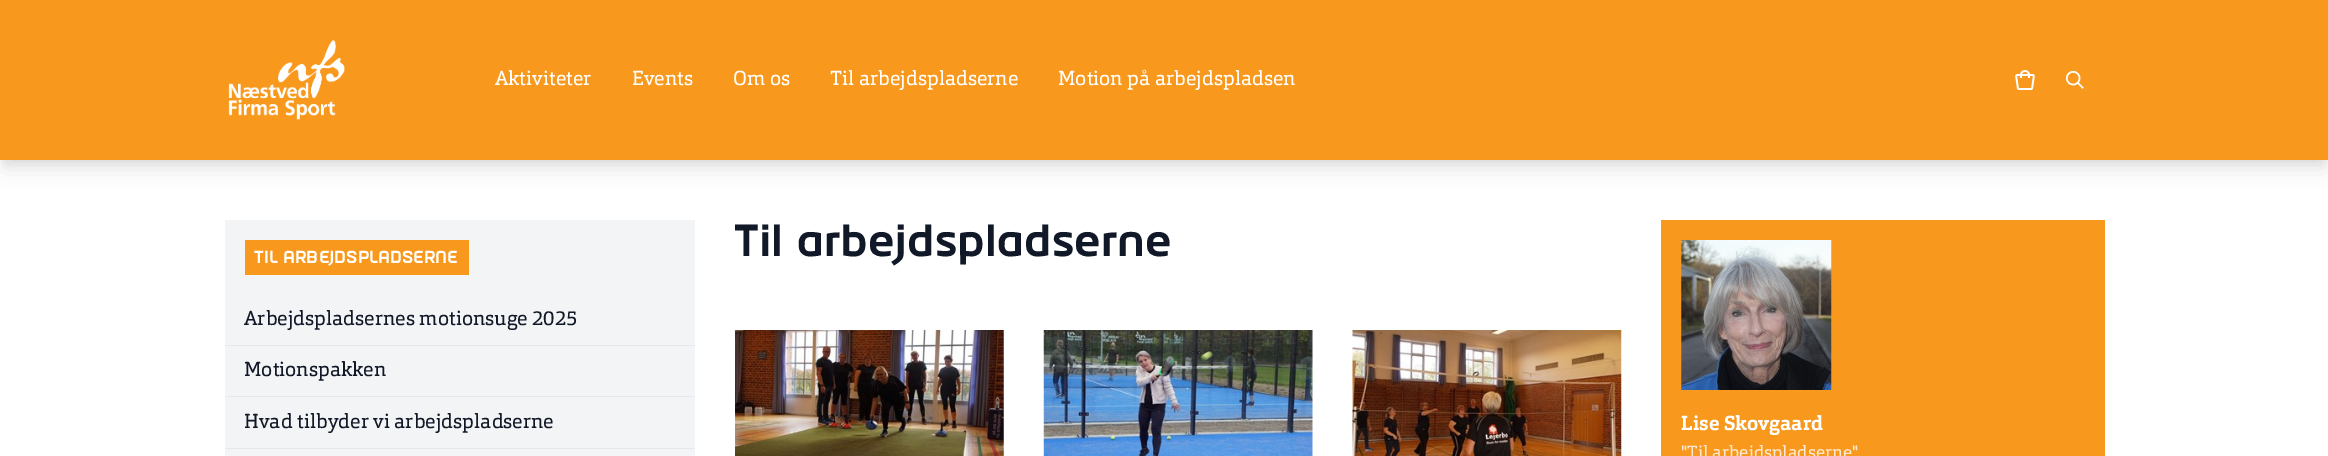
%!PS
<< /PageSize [2328 456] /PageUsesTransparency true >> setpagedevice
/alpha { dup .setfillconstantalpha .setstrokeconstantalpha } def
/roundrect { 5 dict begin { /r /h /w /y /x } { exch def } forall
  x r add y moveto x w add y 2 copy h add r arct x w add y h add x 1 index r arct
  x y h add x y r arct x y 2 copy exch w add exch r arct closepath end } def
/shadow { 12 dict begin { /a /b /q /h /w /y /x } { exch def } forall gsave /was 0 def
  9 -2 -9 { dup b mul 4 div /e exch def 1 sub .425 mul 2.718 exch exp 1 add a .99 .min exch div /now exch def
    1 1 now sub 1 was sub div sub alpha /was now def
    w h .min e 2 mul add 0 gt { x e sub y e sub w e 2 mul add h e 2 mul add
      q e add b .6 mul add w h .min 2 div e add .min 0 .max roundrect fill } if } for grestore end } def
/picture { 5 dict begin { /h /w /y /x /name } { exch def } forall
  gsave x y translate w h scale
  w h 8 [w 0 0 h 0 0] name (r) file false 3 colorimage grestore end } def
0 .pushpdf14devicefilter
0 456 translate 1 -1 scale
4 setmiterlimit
1 setgray
0 0 2328 456 rectfill
0 setgray
3 8 2323 155 0 4 0.05 shadow
4 16 2321 153 0 9.5 0.1 shadow
0.973 0.596 0.11 setrgbcolor
0 0 2328 160 rectfill
(img1.rgb) 228 40 117 80 picture
/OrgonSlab-Regular [20 0 0 -20 0 0] selectfont
1 setgray
495 85 moveto (Aktiviteter) show
632 85 moveto (Events) show
733 85 moveto (Om os) show
830 85 moveto (Til arbejdspladserne) show
1058 85 moveto (Motion på arbejdspladsen) show
(img2.rgb) 2015 70 20 20 picture
(img3.rgb) 2065 70 19 19 picture
0.953 0.957 0.965 setrgbcolor
225 220 470 236 rectfill
0.973 0.596 0.11 setrgbcolor
245 240 224 35 rectfill
/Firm-Bold [17.5 0 0 -17.5 0 0] selectfont
1 setgray
254 263 moveto (TIL ARBEJDSPLADSERNE) show
0.898 0.906 0.922 setrgbcolor
225 345 470 1 rectfill
/OrgonSlab-Regular [20 0 0 -20 0 0] selectfont
0.067 0.094 0.153 setrgbcolor
244 325 moveto (Arbejdspladsernes motionsuge 2025) show
0.898 0.906 0.922 setrgbcolor
225 396 470 1 rectfill
0.067 0.094 0.153 setrgbcolor
244 376 moveto (Motionspakken) show
0.898 0.906 0.922 setrgbcolor
225 448 470 1 rectfill
0.067 0.094 0.153 setrgbcolor
244 428 moveto (Hvad tilbyder vi arbejdspladserne) show
/Firm-Bold [45 0 0 -45 0 0] selectfont
734 256 moveto (Til arbejdspladserne) show
(img4.rgb) 735 330 269 126 picture
(img5.rgb) 1043 330 270 126 picture
(img6.rgb) 1352 330 270 126 picture
0.973 0.596 0.11 setrgbcolor
1661 220 444 236 rectfill
(img7.rgb) 1681 240 151 150 picture
/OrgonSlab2-Regular [20 0 0 -20 0 0] selectfont
1 setgray
1681 430 moveto (Lise Skovgaard) show
/OrgonSlab-Regular [17.5 0 0 -17.5 0 0] selectfont
0.996 0.918 0.824 setrgbcolor
1681 458 moveto ("Til arbejdspladserne") show
.poppdf14devicefilter showpage
